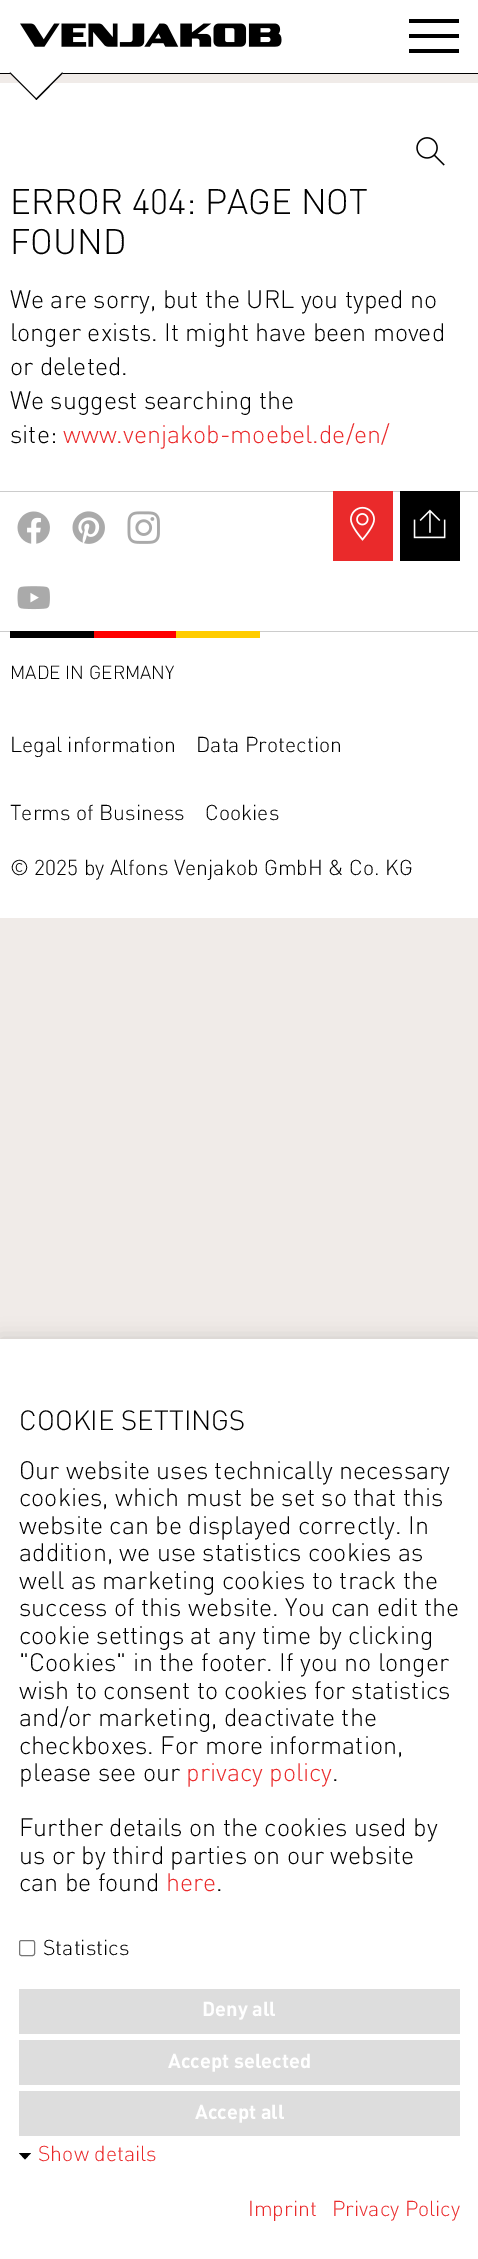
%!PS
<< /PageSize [478 2259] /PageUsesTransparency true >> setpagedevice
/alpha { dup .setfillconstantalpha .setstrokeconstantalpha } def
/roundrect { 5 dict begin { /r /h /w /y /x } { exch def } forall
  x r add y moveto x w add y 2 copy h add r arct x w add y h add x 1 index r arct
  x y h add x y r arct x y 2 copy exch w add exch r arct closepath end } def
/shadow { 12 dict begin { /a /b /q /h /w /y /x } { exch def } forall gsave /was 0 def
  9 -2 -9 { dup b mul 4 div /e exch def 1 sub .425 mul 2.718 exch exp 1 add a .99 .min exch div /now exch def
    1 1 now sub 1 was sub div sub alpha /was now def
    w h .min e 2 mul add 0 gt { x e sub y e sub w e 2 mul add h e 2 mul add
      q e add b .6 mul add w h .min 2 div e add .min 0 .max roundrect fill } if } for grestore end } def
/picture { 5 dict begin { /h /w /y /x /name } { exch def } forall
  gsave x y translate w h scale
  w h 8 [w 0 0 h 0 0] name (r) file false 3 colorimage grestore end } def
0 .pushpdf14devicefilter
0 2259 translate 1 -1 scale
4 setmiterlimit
0.941 0.922 0.91 setrgbcolor
0 0 478 2259 rectfill
1 setgray
0 0 478 73 rectfill
(img1.rgb) 20 23 262 24 picture
0 setgray
409 34 50 4 rectfill
409 19 50 4 rectfill
409 49 50 4 rectfill
0 73 478 1 rectfill
1 setgray
0 83 478 835 rectfill
gsave
0 73 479 27 rectclip
newpath 36 47 moveto 63 73 lineto 36 100 lineto 10 73 lineto closepath fill
grestore
0 setgray
newpath 62 72.5 moveto 63 73 lineto 36.5 100 lineto 35.5 99 lineto closepath fill
newpath 10.5 72.5 moveto 37 99 lineto 36.5 100 lineto 9.5 73 lineto closepath fill
(img2.rgb) 416 137 29 29 picture
/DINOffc-Light [35 0 0 -35 0 0] selectfont
10 214 moveto (ERROR 404: PAGE NOT) show
10 254 moveto (FOUND) show
/DINOffc-Light [25 0 0 -25 0 0] selectfont
10 308 moveto (We are sorry, but the URL you typed no) show
10 341 moveto (longer exists. It might have been moved) show
10 375 moveto (or deleted.) show
10 409 moveto (We suggest searching the) show
10 443 moveto (site:) show
0.918 0.165 0.169 setrgbcolor
63 443 moveto (www.venjakob-moebel.de/en/) show
0.8 setgray
0 491 478 1 rectfill
(img3.rgb) 17 511 33 33 picture
(img4.rgb) 72 511 33 33 picture
(img5.rgb) 127 511 33 33 picture
(img6.rgb) 17 586 33 24 picture
0.918 0.165 0.169 setrgbcolor
333 491 60 70 rectfill
(img7.rgb) 350 506 25 35 picture
0 setgray
400 491 60 70 rectfill
(img8.rgb) 413 509 33 30 picture
0.8 setgray
0 631 478 1 rectfill
0 setgray
10 631 84 7 rectfill
1 0 0 setrgbcolor
94 631 82 7 rectfill
1 0.8 0 setrgbcolor
176 631 84 7 rectfill
/DINOffc-Light [18.75 0 0 -18.75 0 0] selectfont
0 setgray
10 679 moveto (MADE IN GERMANY) show
/DINOffc-Light [21.25 0 0 -21.25 0 0] selectfont
10 752 moveto (Legal information) show
196 752 moveto (Data Protection) show
10 820 moveto (Terms of Business) show
205 820 moveto (Cookies) show
10 875 moveto (© 2025 by Alfons Venjakob GmbH & Co. KG) show
0 1339 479 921 0 10 0.15 shadow
1 setgray
0 1339 478 920 rectfill
/DINOffc-Light [27.5 0 0 -27.5 0 0] selectfont
0 setgray
19 1430 moveto (COOKIE SETTINGS) show
/DINOffc-Light [25 0 0 -25 0 0] selectfont
19 1479 moveto (Our website uses technically necessary) show
19 1506 moveto (cookies, which must be set so that this) show
19 1534 moveto (website can be displayed correctly. In) show
19 1561 moveto (addition, we use statistics cookies as) show
19 1589 moveto (well as marketing cookies to track the) show
19 1616 moveto (success of this website. You can edit the) show
19 1644 moveto (cookie settings at any time by clicking) show
19 1671 moveto ("Cookies" in the footer. If you no longer) show
19 1699 moveto (wish to consent to cookies for statistics) show
19 1726 moveto (and/or marketing, deactivate the) show
19 1754 moveto (checkboxes. For more information,) show
19 1781 moveto (please see our) show
0.918 0.165 0.169 setrgbcolor
186 1781 moveto (privacy policy) show
0 setgray
332 1781 moveto (.) show
19 1836 moveto (Further details on the cookies used by) show
19 1864 moveto (us or by third parties on our website) show
19 1891 moveto (can be found) show
0.918 0.165 0.169 setrgbcolor
166 1891 moveto (here) show
0 setgray
216 1891 moveto (.) show
0.463 setgray
19.5 1940.5 15 15 2 roundrect stroke
/DINOffc-Light [21.25 0 0 -21.25 0 0] selectfont
0 setgray
43 1955 moveto (Statistics) show
0.867 setgray
19 1989 441 45 rectfill
/DINOffc-Bold [20 0 0 -20 0 0] selectfont
1 setgray
202 2016 moveto (Deny all) show
0.867 setgray
19 2040 441 45 rectfill
1 setgray
168 2068 moveto (Accept selected) show
0.867 setgray
19 2091 441 45 rectfill
1 setgray
195 2119 moveto (Accept all) show
0 setgray
newpath 19 2153 moveto 31 2153 lineto 25 2159.5 lineto closepath fill
/DINOffc-Light [21.25 0 0 -21.25 0 0] selectfont
0.918 0.165 0.169 setrgbcolor
38 2161 moveto (Show details) show
248 2216 moveto (Imprint) show
332 2216 moveto (Privacy Policy) show
.poppdf14devicefilter showpage
